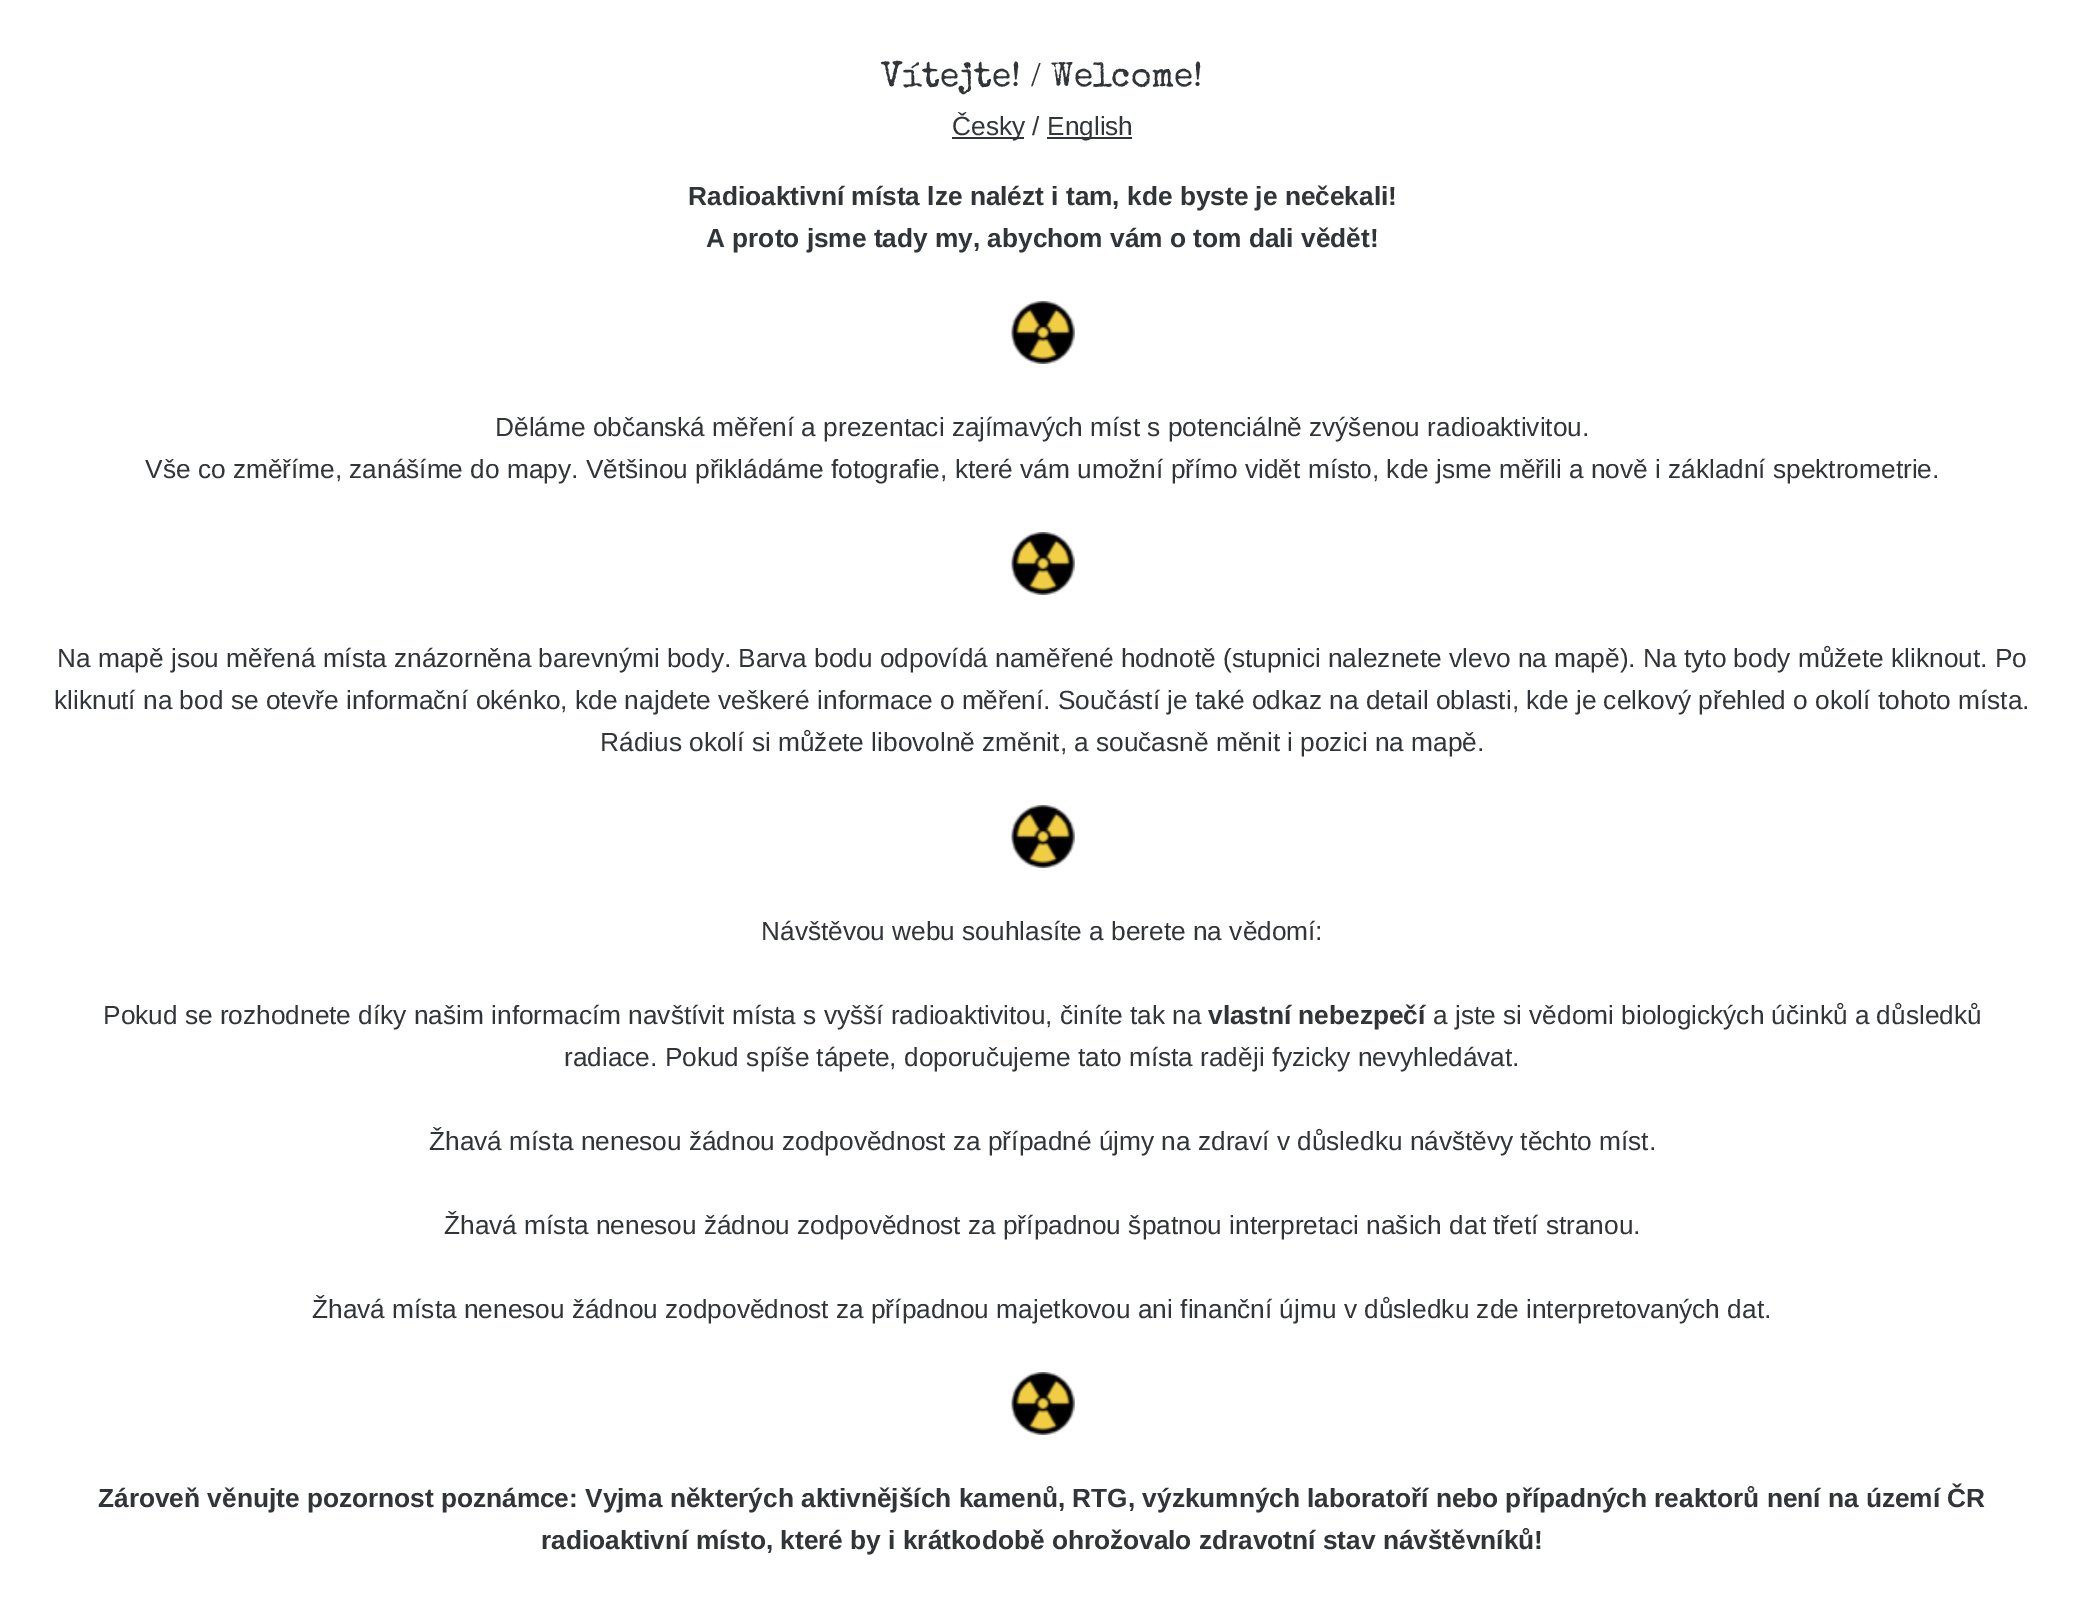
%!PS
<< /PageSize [2083 1624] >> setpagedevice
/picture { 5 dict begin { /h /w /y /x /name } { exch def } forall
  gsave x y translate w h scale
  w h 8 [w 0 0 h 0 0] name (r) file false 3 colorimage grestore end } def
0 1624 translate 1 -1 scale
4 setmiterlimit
1 setgray
0 0 2083 1624 rectfill
/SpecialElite-Regular [35 0 0 -35 0 0] selectfont
0.192 0.204 0.22 setrgbcolor
881 86 moveto (Vítejte!) show
/LiberationSerif-Regular [35 0 0 -35 0 0] selectfont
1031 86 moveto (/) show
/SpecialElite-Regular [35 0 0 -35 0 0] selectfont
1051 86 moveto (Welcome!) show
952 137 72 2 rectfill
/LiberationSans-Regular [26.25 0 0 -26.25 0 0] selectfont
952 135 moveto (Česky /) show
1047 137 85 2 rectfill
1047 135 moveto (English) show
/LiberationSans-Bold [26.25 0 0 -26.25 0 0] selectfont
688 205 moveto (Radioaktivní místa lze nalézt i tam, kde byste je nečekali!) show
706 247 moveto (A proto jsme tady my, abychom vám o tom dali vědět!) show
(img1.rgb) 1010 301 65 63 picture
/LiberationSans-Regular [26.25 0 0 -26.25 0 0] selectfont
495 436 moveto (Děláme občanská měření a prezentaci zajímavých míst s potenciálně zvýšenou radioaktivitou.) show
145 478 moveto (Vše co změříme, zanášíme do mapy. Většinou přikládáme fotografie, které vám umožní přímo vidět místo, kde jsme měřili a nově i základní spektrometrie.) show
(img1.rgb) 1010 532 65 63 picture
57 667 moveto (Na mapě jsou měřená místa znázorněna barevnými body. Barva bodu odpovídá naměřené hodnotě \(stupnici naleznete vlevo na mapě\). Na tyto body můžete kliknout. Po) show
54 709 moveto (kliknutí na bod se otevře informační okénko, kde najdete veškeré informace o měření. Součástí je také odkaz na detail oblasti, kde je celkový přehled o okolí tohoto místa.) show
600 751 moveto (Rádius okolí si můžete libovolně změnit, a současně měnit i pozici na mapě.) show
(img1.rgb) 1010 805 65 63 picture
761 940 moveto (Návštěvou webu souhlasíte a berete na vědomí:) show
103 1024 moveto (Pokud se rozhodnete díky našim informacím navštívit místa s vyšší radioaktivitou, činíte tak na) show
/LiberationSans-Bold [26.25 0 0 -26.25 0 0] selectfont
1208 1024 moveto (vlastní nebezpečí) show
/LiberationSans-Regular [26.25 0 0 -26.25 0 0] selectfont
1433 1024 moveto (a jste si vědomi biologických účinků a důsledků) show
564 1066 moveto (radiace. Pokud spíše tápete, doporučujeme tato místa raději fyzicky nevyhledávat.) show
429 1150 moveto (Žhavá místa nenesou žádnou zodpovědnost za případné újmy na zdraví v důsledku návštěvy těchto míst.) show
444 1234 moveto (Žhavá místa nenesou žádnou zodpovědnost za případnou špatnou interpretaci našich dat třetí stranou.) show
312 1318 moveto (Žhavá místa nenesou žádnou zodpovědnost za případnou majetkovou ani finanční újmu v důsledku zde interpretovaných dat.) show
(img1.rgb) 1010 1372 65 63 picture
/LiberationSans-Bold [26.25 0 0 -26.25 0 0] selectfont
98 1507 moveto (Zároveň věnujte pozornost poznámce: Vyjma některých aktivnějších kamenů, RTG, výzkumných laboratoří nebo případných reaktorů není na území ČR) show
541 1549 moveto (radioaktivní místo, které by i krátkodobě ohrožovalo zdravotní stav návštěvníků!) show
showpage
